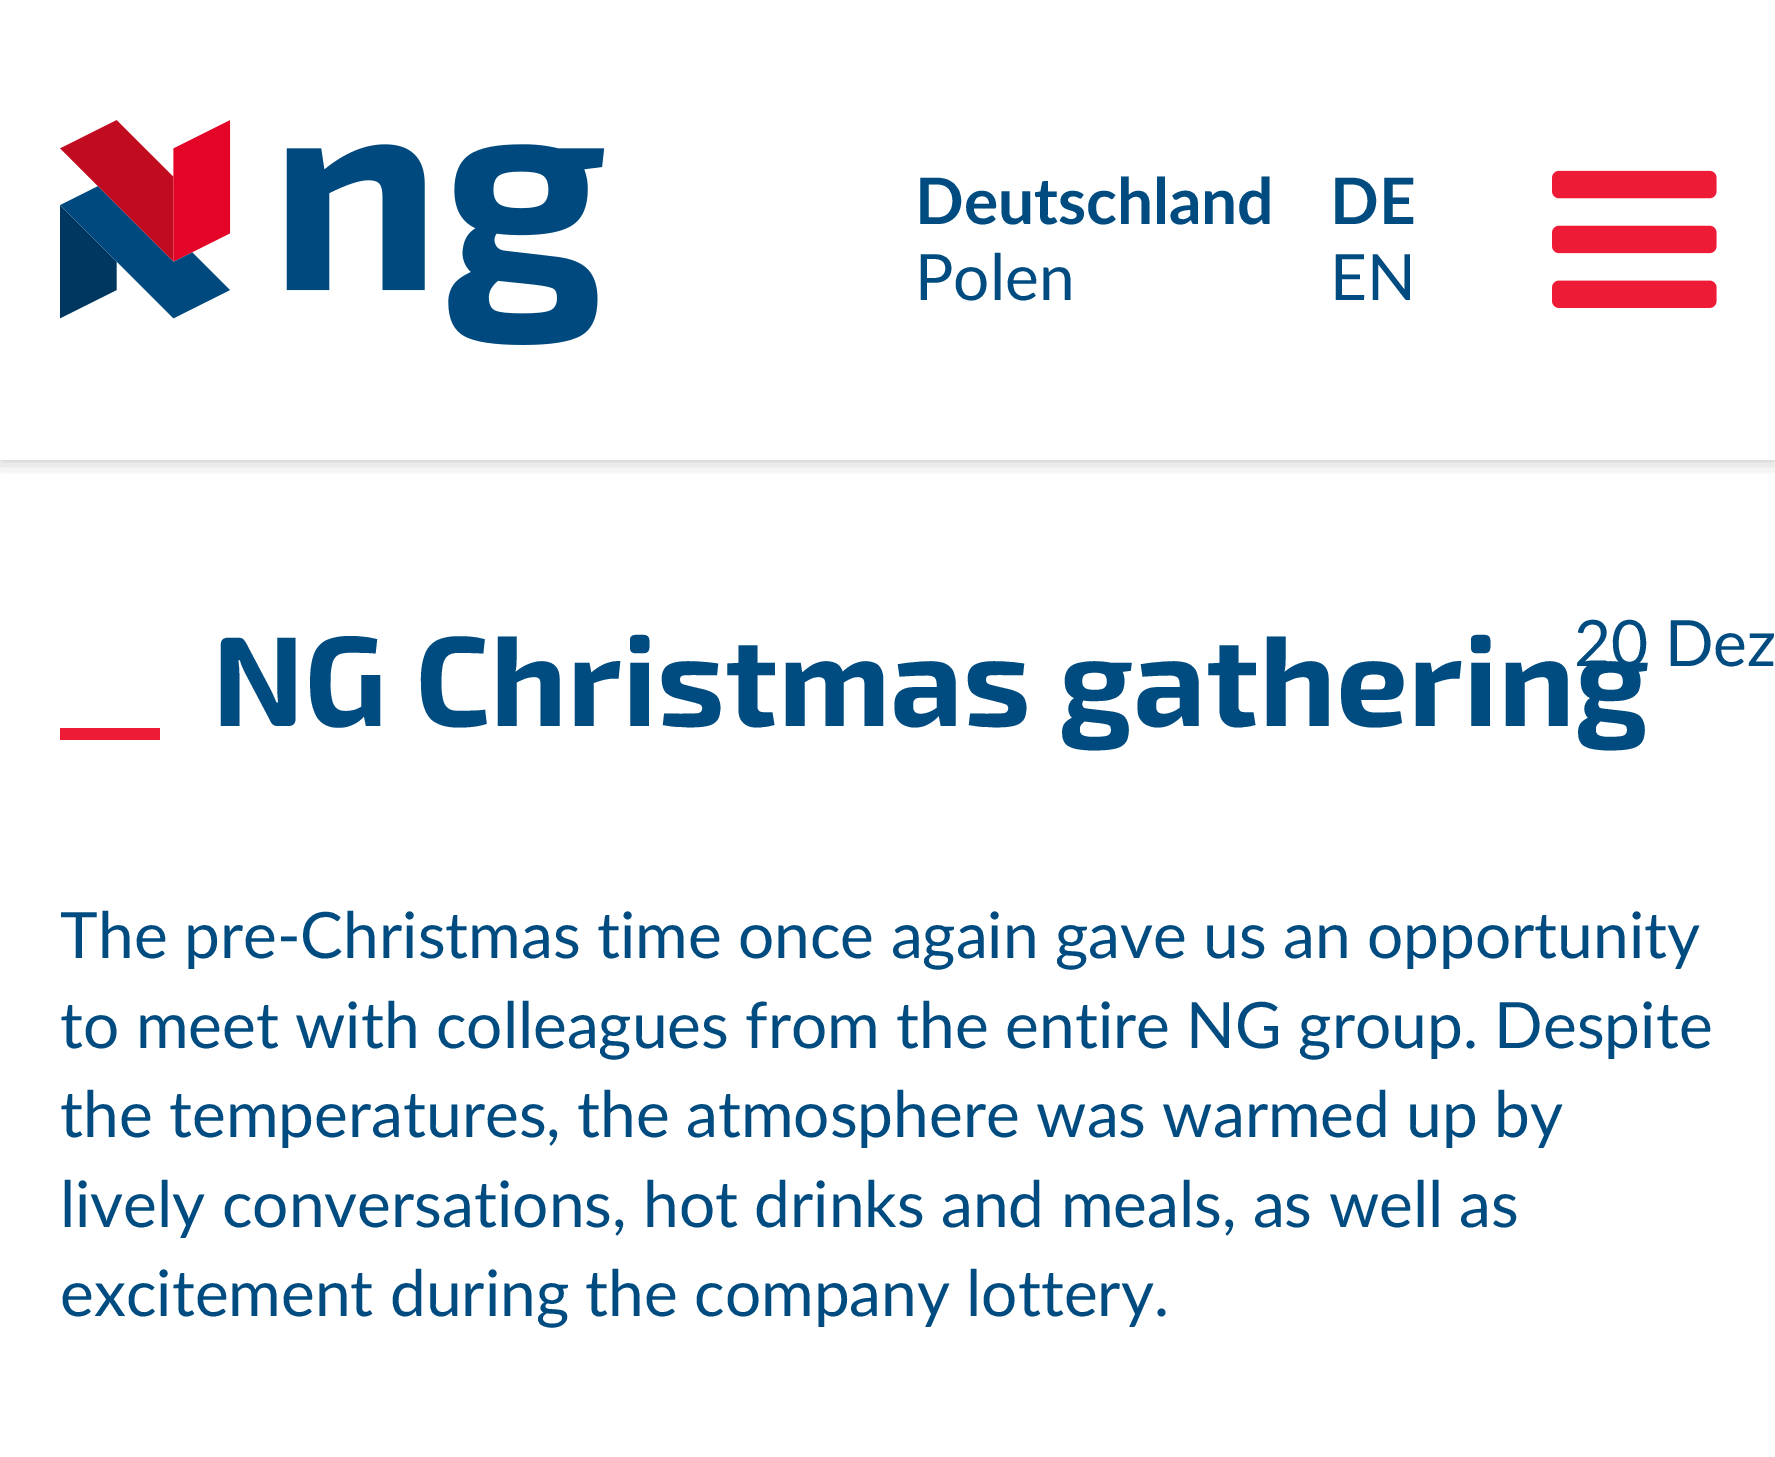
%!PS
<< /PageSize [1775 1457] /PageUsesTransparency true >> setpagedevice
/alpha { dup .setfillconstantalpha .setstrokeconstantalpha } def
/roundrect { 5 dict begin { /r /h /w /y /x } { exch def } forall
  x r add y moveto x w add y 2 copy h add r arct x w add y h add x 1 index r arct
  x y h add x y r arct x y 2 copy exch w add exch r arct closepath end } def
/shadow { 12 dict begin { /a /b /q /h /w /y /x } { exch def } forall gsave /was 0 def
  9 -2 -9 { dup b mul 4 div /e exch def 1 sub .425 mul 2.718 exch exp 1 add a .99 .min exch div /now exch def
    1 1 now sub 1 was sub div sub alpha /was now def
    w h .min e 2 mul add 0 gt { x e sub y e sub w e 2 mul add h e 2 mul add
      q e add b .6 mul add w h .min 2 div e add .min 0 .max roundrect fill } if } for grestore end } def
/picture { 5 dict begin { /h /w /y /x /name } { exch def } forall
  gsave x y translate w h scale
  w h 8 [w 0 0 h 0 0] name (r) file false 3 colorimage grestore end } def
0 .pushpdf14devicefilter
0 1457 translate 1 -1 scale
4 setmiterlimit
1 setgray
0 0 1775 1457 rectfill
gsave
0 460 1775 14 rectclip
0 setgray
0 0 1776 460 0 10 0.25 shadow
grestore
(img1.rgb) 60 120 545 225 picture
/Lato-Bold [64 0 0 -64 0 0] selectfont
0 0.294 0.502 setrgbcolor
915 224 moveto (Deutschland) show
/Lato-Regular [64 0 0 -64 0 0] selectfont
915 300 moveto (Polen) show
/Lato-Bold [64 0 0 -64 0 0] selectfont
1330 224 moveto (DE) show
/Lato-Regular [64 0 0 -64 0 0] selectfont
1330 300 moveto (EN) show
(img2.rgb) 1552 170 165 138 picture
0.929 0.106 0.208 setrgbcolor
60 728 100 12 rectfill
/Exo2-Bold [128 0 0 -128 0 0] selectfont
0 0.294 0.502 setrgbcolor
212 726 moveto (NG Christmas gathering) show
/Lato-Regular [64 0 0 -64 0 0] selectfont
1574 666 moveto (20 Dez) show
60 958 moveto (The pre-Christmas time once again gave us an opportunity) show
60 1048 moveto (to meet with colleagues from the entire NG group. Despite) show
60 1137 moveto (the temperatures, the atmosphere was warmed up by) show
60 1227 moveto (lively conversations, hot drinks and meals, as well as) show
60 1316 moveto (excitement during the company lottery.) show
.poppdf14devicefilter showpage
